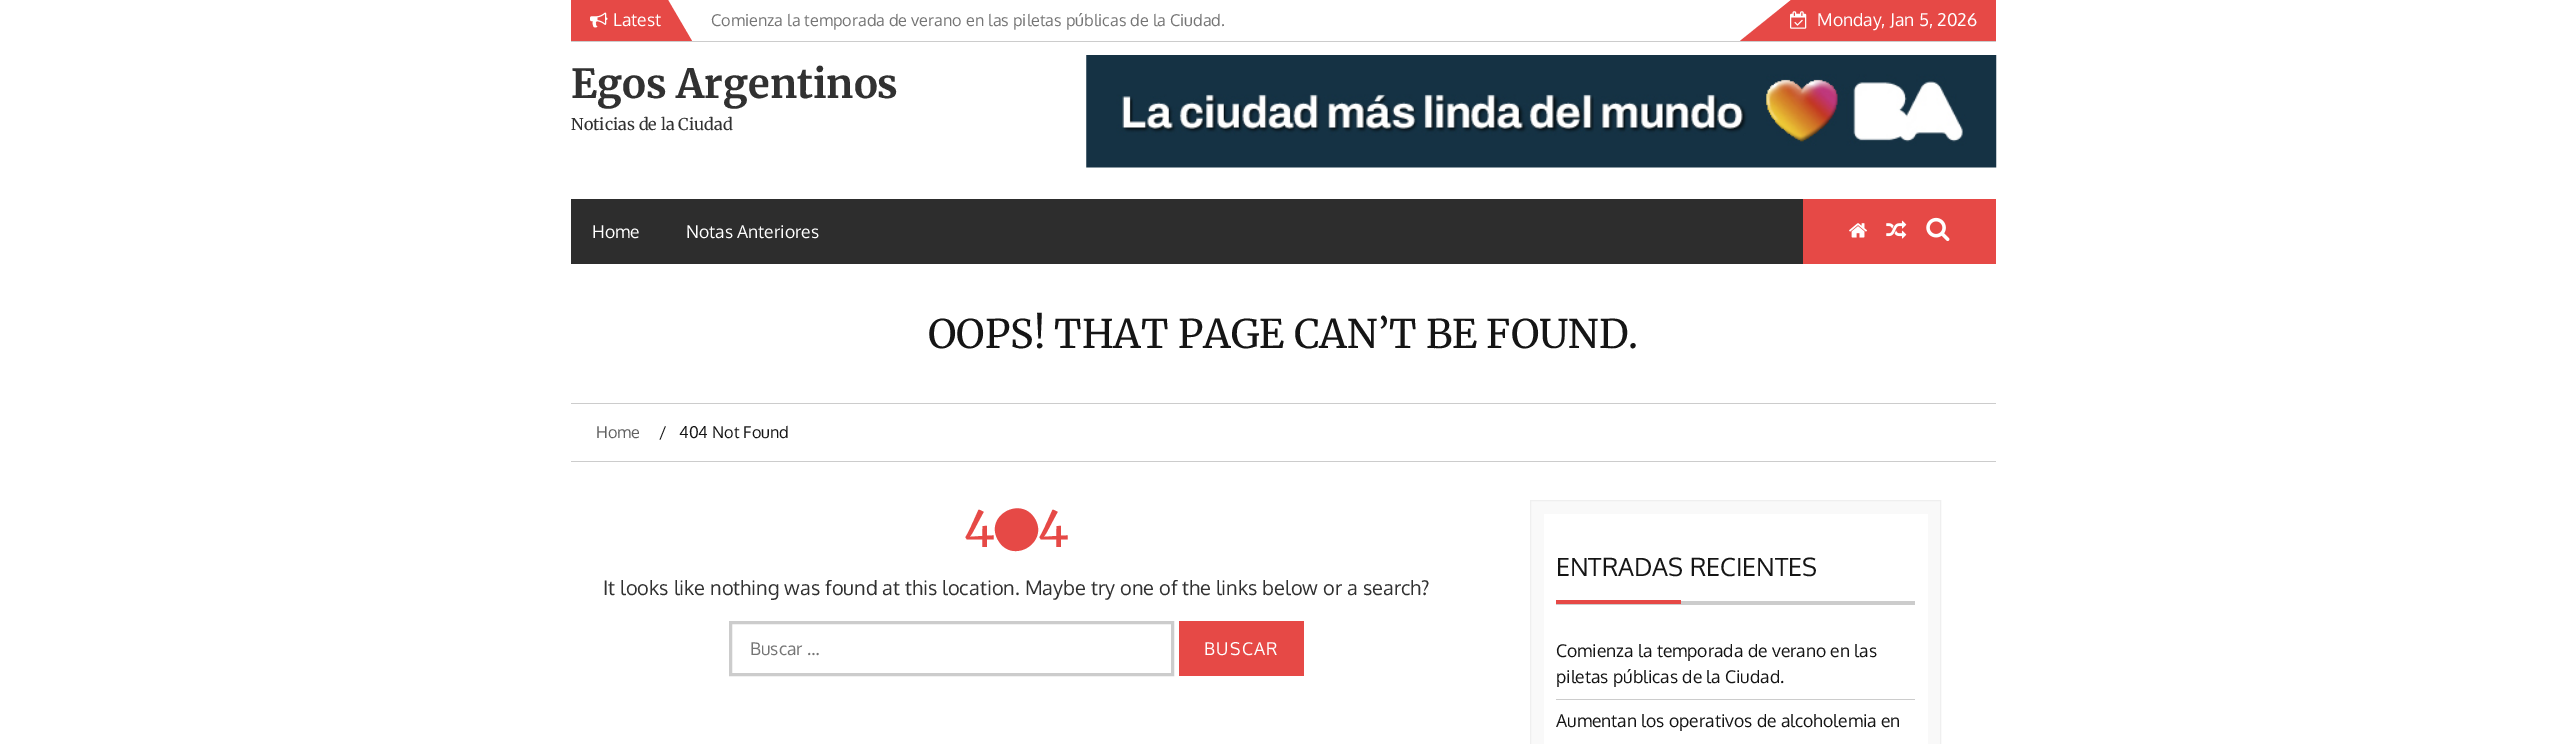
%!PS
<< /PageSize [2566 744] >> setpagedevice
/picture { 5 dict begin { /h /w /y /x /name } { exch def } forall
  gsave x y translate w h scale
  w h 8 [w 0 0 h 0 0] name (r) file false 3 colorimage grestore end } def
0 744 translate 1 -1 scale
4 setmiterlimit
1 setgray
0 0 2566 744 rectfill
0.8 setgray
571 41 1425 1 rectfill
0.902 0.286 0.275 setrgbcolor
newpath 571 0 moveto 571 41 lineto 692 41 lineto 668 0 lineto closepath fill
(img1.rgb) 590 12 18 16 picture
/Oxygen-Regular [17.5 0 0 -17.5 0 0] selectfont
1 setgray
613 26 moveto (Latest) show
/Oxygen-Regular [16.25 0 0 -16.25 0 0] selectfont
0.459 setgray
711 26 moveto (Comienza la temporada de verano en las piletas públicas de la Ciudad.) show
0.902 0.286 0.275 setrgbcolor
newpath 1791 0 moveto 1740 41 lineto 1996 41 lineto 1996 0 lineto closepath fill
(img2.rgb) 1790 11 17 18 picture
/Oxygen-Regular [17.5 0 0 -17.5 0 0] selectfont
1 setgray
1817 26 moveto (Monday, Jan 5, 2026) show
/Merriweather-Bold [40 0 0 -40 0 0] selectfont
0.192 setgray
571 98 moveto (Egos Argentinos) show
/Merriweather-Regular [16.25 0 0 -16.25 0 0] selectfont
571 130 moveto (Noticias de la Ciudad) show
(img3.rgb) 1086 55 911 113 picture
0.176 setgray
571 199 1232 65 rectfill
/Oxygen-Regular [17.5 0 0 -17.5 0 0] selectfont
1 setgray
592 238 moveto (Home) show
686 238 moveto (Notas Anteriores) show
0.902 0.286 0.275 setrgbcolor
1803 199 193 65 rectfill
(img4.rgb) 1849 223 18 15 picture
(img5.rgb) 1886 220 21 19 picture
(img6.rgb) 1926 217 24 25 picture
/Merriweather-Regular [39.4 0 0 -39.4 0 0] selectfont
0.082 setgray
928 348 moveto (OOPS! THAT PAGE CAN’T BE FOUND.) show
0.8 setgray
571 403 1425 1 rectfill
571 461 1425 1 rectfill
/Oxygen-Regular [16.25 0 0 -16.25 0 0] selectfont
0.384 setgray
596 438 moveto (Home) show
0.082 setgray
659 438 moveto (/) show
679 438 moveto (404 Not Found) show
/Merriweather-Regular [50 0 0 -50 0 0] selectfont
0.902 0.286 0.275 setrgbcolor
964 547 moveto (4) show
newpath 1035 519 moveto 1049 543 1012 565 998 540 curveto 984 516 1021 495 1035 519 curveto closepath fill
1038 547 moveto (4) show
/Oxygen-Regular [20 0 0 -20 0 0] selectfont
0.192 setgray
603 595 moveto (It looks like nothing was found at this location. Maybe try one of the links below or a search?) show
0.8 setgray
3 setlinewidth
730.5 622.5 442 52 rectstroke
/Oxygen-Regular [17.5 0 0 -17.5 0 0] selectfont
0.459 setgray
750 655 moveto (Buscar …) show
0.902 0.286 0.275 setrgbcolor
1179 621 125 55 rectfill
1 setgray
1204 655 moveto 1.25 0 (BUSCAR) ashow
0.976 setgray
newpath 1530.5 500.5 moveto 1940.5 500.5 lineto 1940.5 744.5 lineto 1530.5 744.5 lineto closepath gsave fill grestore
0.937 setgray
1 setlinewidth
stroke
1 setgray
1544 514 384 230 rectfill
0.8 setgray
1556 601 359 4 rectfill
/Oxygen-Regular [25 0 0 -25 0 0] selectfont
0.082 setgray
1556 576 moveto (ENTRADAS RECIENTES) show
0.902 0.286 0.275 setrgbcolor
1556 600 125 4 rectfill
/Oxygen-Regular [17.5 0 0 -17.5 0 0] selectfont
0.082 setgray
1556 657 moveto (Comienza la temporada de verano en las) show
1556 683 moveto (piletas públicas de la Ciudad.) show
0.8 setgray
1556 699 359 1 rectfill
0.082 setgray
1556 727 moveto (Aumentan los operativos de alcoholemia en) show
showpage
